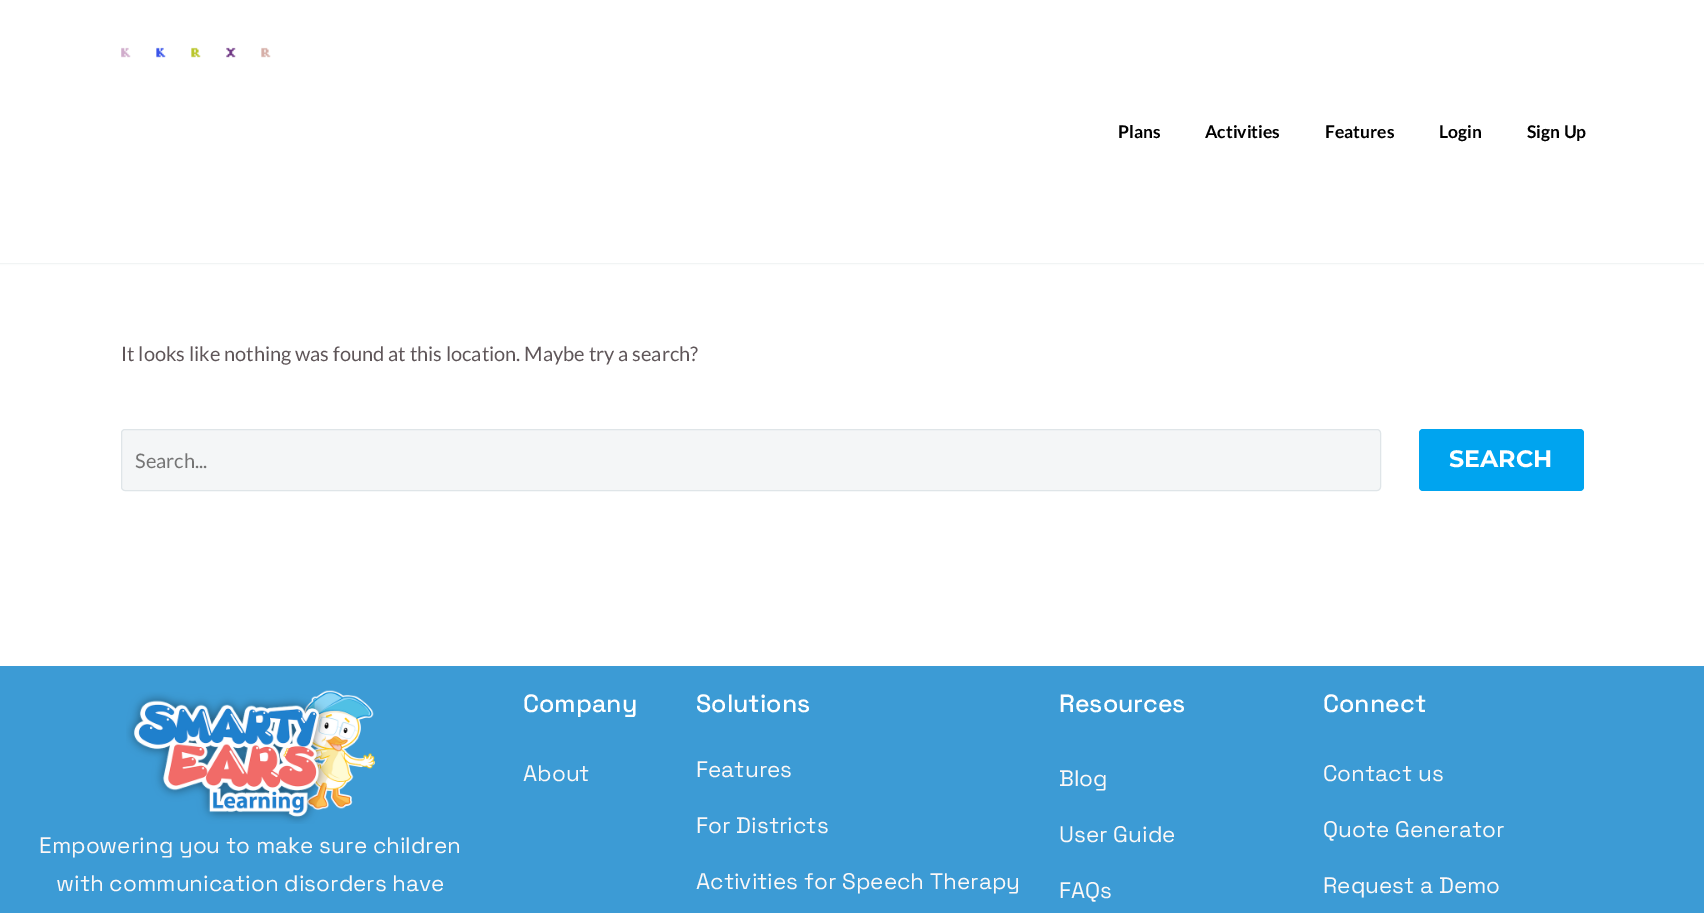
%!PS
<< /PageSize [1704 913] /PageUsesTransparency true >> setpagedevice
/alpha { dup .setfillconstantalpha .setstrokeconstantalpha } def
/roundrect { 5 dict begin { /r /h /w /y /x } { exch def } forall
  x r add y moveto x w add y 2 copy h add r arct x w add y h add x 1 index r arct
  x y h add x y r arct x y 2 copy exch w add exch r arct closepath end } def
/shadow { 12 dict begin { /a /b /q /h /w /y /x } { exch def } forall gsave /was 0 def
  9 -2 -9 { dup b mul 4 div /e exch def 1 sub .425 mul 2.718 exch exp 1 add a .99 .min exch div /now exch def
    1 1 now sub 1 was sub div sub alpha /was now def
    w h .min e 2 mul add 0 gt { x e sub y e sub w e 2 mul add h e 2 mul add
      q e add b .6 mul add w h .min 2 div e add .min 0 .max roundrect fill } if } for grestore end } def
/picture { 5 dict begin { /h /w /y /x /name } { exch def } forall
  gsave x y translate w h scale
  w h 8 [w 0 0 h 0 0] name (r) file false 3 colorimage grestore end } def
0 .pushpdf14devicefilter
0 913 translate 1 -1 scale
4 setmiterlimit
1 setgray
0 0 1704 913 rectfill
gsave
newpath 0 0 moveto 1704 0 lineto 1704 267 lineto 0 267 lineto closepath 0 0 moveto 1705 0 lineto 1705 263 lineto 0 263 lineto closepath eoclip newpath
0.22 0.271 0.329 setrgbcolor
0 0 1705 263 0 1 0.2 shadow
grestore
(img1.rgb) 121 47 150 11 picture
/Lato-Bold [17.5 0 0 -17.5 0 0] selectfont
0 setgray
1118 138 moveto (Plans) show
1205 138 moveto (Activities) show
1325 138 moveto (Features) show
1439 138 moveto (Login) show
1527 138 moveto (Sign Up) show
0.95 alpha
1 setgray
0 262 1704 1 rectfill
/Lato-Regular [20 0 0 -20 0 0] selectfont
1 alpha
0.373 0.337 0.349 setrgbcolor
121 361 moveto (It looks like nothing was found at this location. Maybe try a search?) show
0.957 0.965 0.969 setrgbcolor
121.5 429.5 1259 61 3.5 roundrect gsave fill grestore
0.875 0.898 0.91 setrgbcolor
stroke
0.459 setgray
135 468 moveto (Search...) show
0 0.643 0.937 setrgbcolor
1419 429 165 62 4 roundrect fill
/Montserrat-Bold [23.75 0 0 -23.75 0 0] selectfont
1 setgray
1449 467 moveto (SEARCH) show
0.235 0.608 0.835 setrgbcolor
0 666 1704 247 rectfill
(img2.rgb) 126 690 249 134 picture
/SpaceGrotesk-Regular [22.5 0 0 -22.5 0 0] selectfont
0.988 0.973 0.969 setrgbcolor
39 853 moveto (Empowering you to make sure children) show
56 891 moveto (with communication disorders have) show
/SpaceGrotesk-Medium [25 0 0 -25 0 0] selectfont
1 setgray
523 712 moveto (Company) show
/SpaceGrotesk-Regular [22.5 0 0 -22.5 0 0] selectfont
0.988 0.973 0.969 setrgbcolor
523 781 moveto (About) show
/SpaceGrotesk-Medium [25 0 0 -25 0 0] selectfont
1 setgray
696 712 moveto (Solutions) show
/SpaceGrotesk-Regular [22.5 0 0 -22.5 0 0] selectfont
0.988 0.973 0.969 setrgbcolor
696 777 moveto (Features) show
696 833 moveto (For Districts) show
696 889 moveto (Activities for Speech Therapy) show
/SpaceGrotesk-Medium [25 0 0 -25 0 0] selectfont
1 setgray
1059 712 moveto (Resources) show
/SpaceGrotesk-Regular [22.5 0 0 -22.5 0 0] selectfont
0.988 0.973 0.969 setrgbcolor
1059 786 moveto (Blog) show
1059 842 moveto (User Guide) show
1059 898 moveto (FAQs) show
/SpaceGrotesk-Medium [25 0 0 -25 0 0] selectfont
1 setgray
1323 712 moveto (Connect) show
/SpaceGrotesk-Regular [22.5 0 0 -22.5 0 0] selectfont
0.988 0.973 0.969 setrgbcolor
1323 781 moveto (Contact us) show
1323 837 moveto (Quote Generator) show
1323 893 moveto (Request a Demo) show
.poppdf14devicefilter showpage
